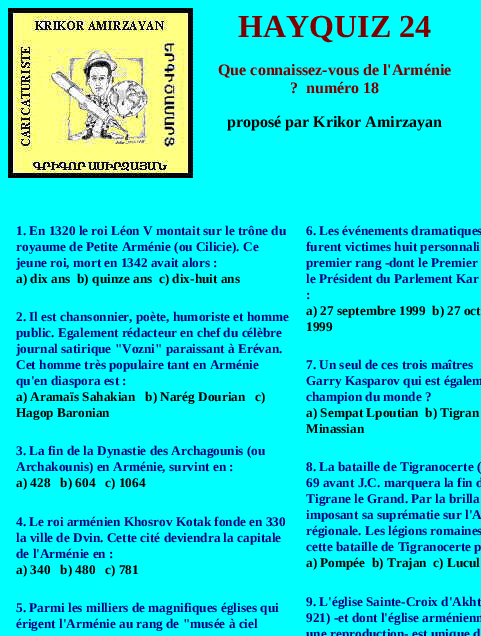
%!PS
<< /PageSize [481 636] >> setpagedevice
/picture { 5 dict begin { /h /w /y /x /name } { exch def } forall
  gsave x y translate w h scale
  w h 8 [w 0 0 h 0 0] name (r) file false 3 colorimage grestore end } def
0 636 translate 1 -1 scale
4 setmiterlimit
0 1 1 setrgbcolor
0 0 481 636 rectfill
(img1.rgb) 8 8 185 170 picture
/LiberationSerif-Bold [32 0 0 -32 0 0] selectfont
0.502 0 0 setrgbcolor
238 37 moveto (HAYQUIZ 24) show
/LiberationSerif-Bold [16 0 0 -16 0 0] selectfont
218 75 moveto (Que connaissez-vous de l'Arménie) show
290 93 moveto (?  numéro 18) show
0 setgray
227 127 moveto (proposé par Krikor Amirzayan) show
/LiberationSerif-Bold [13.25 0 0 -13.25 0 0] selectfont
0 0 0.502 setrgbcolor
16 235 moveto (1. En 1320 le roi Léon V montait sur le trône du) show
16 251 moveto (royaume de Petite Arménie \(ou Cilicie\). Ce) show
16 267 moveto (jeune roi, mort en 1342 avait alors :) show
0 setgray
16 283 moveto (a\) dix ans  b\) quinze ans  c\) dix-huit ans) show
0 0 0.502 setrgbcolor
16 321 moveto (2. Il est chansonnier, poète, humoriste et homme) show
16 337 moveto (public. Egalement rédacteur en chef du célèbre) show
16 353 moveto (journal satirique "Vozni" paraissant à Erévan.) show
16 369 moveto (Cet homme très populaire tant en Arménie) show
16 385 moveto (qu'en diaspora est :) show
0 setgray
16 401 moveto (a\) Aramaïs Sahakian   b\) Narég Dourian   c\)) show
16 417 moveto (Hagop Baronian) show
0 0 0.502 setrgbcolor
16 455 moveto (3. La fin de la Dynastie des Archagounis \(ou) show
16 471 moveto (Archakounis\) en Arménie, survint en :) show
0 setgray
16 487 moveto (a\) 428   b\) 604   c\) 1064) show
0 0 0.502 setrgbcolor
16 526 moveto (4. Le roi arménien Khosrov Kotak fonde en 330) show
16 542 moveto (la ville de Dvin. Cette cité deviendra la capitale) show
16 558 moveto (de l'Arménie en :) show
0 setgray
16 574 moveto (a\) 340   b\) 480   c\) 781) show
0 0 0.502 setrgbcolor
16 612 moveto (5. Parmi les milliers de magnifiques églises qui) show
16 628 moveto (érigent l'Arménie au rang de "musée à ciel) show
306 235 moveto (6. Les événements dramatiques) show
306 251 moveto (furent victimes huit personnali) show
306 267 moveto (premier rang -dont le Premier) show
306 283 moveto (le Président du Parlement Kar) show
306 299 moveto (:) show
0 setgray
306 315 moveto (a\) 27 septembre 1999  b\) 27 oct) show
306 331 moveto (1999) show
0 0 0.502 setrgbcolor
306 369 moveto (7. Un seul de ces trois maîtres) show
306 385 moveto (Garry Kasparov qui est égalem) show
306 401 moveto (champion du monde ?) show
0 setgray
306 417 moveto (a\) Sempat Lpoutian  b\) Tigran) show
306 433 moveto (Minassian) show
0 0 0.502 setrgbcolor
306 471 moveto (8. La bataille de Tigranocerte \() show
306 487 moveto (69 avant J.C. marquera la fin d) show
306 503 moveto (Tigrane le Grand. Par la brilla) show
306 519 moveto (imposant sa suprématie sur l'A) show
306 535 moveto (régionale. Les légions romaines) show
306 551 moveto (cette bataille de Tigranocerte p) show
0 setgray
306 567 moveto (a\) Pompée  b\) Trajan  c\) Lucul) show
0 0 0.502 setrgbcolor
306 606 moveto (9. L'église Sainte-Croix d'Akht) show
306 622 moveto (921\) -et dont l'église arménienn) show
306 638 moveto (une reproduction- est unique d) show
showpage
